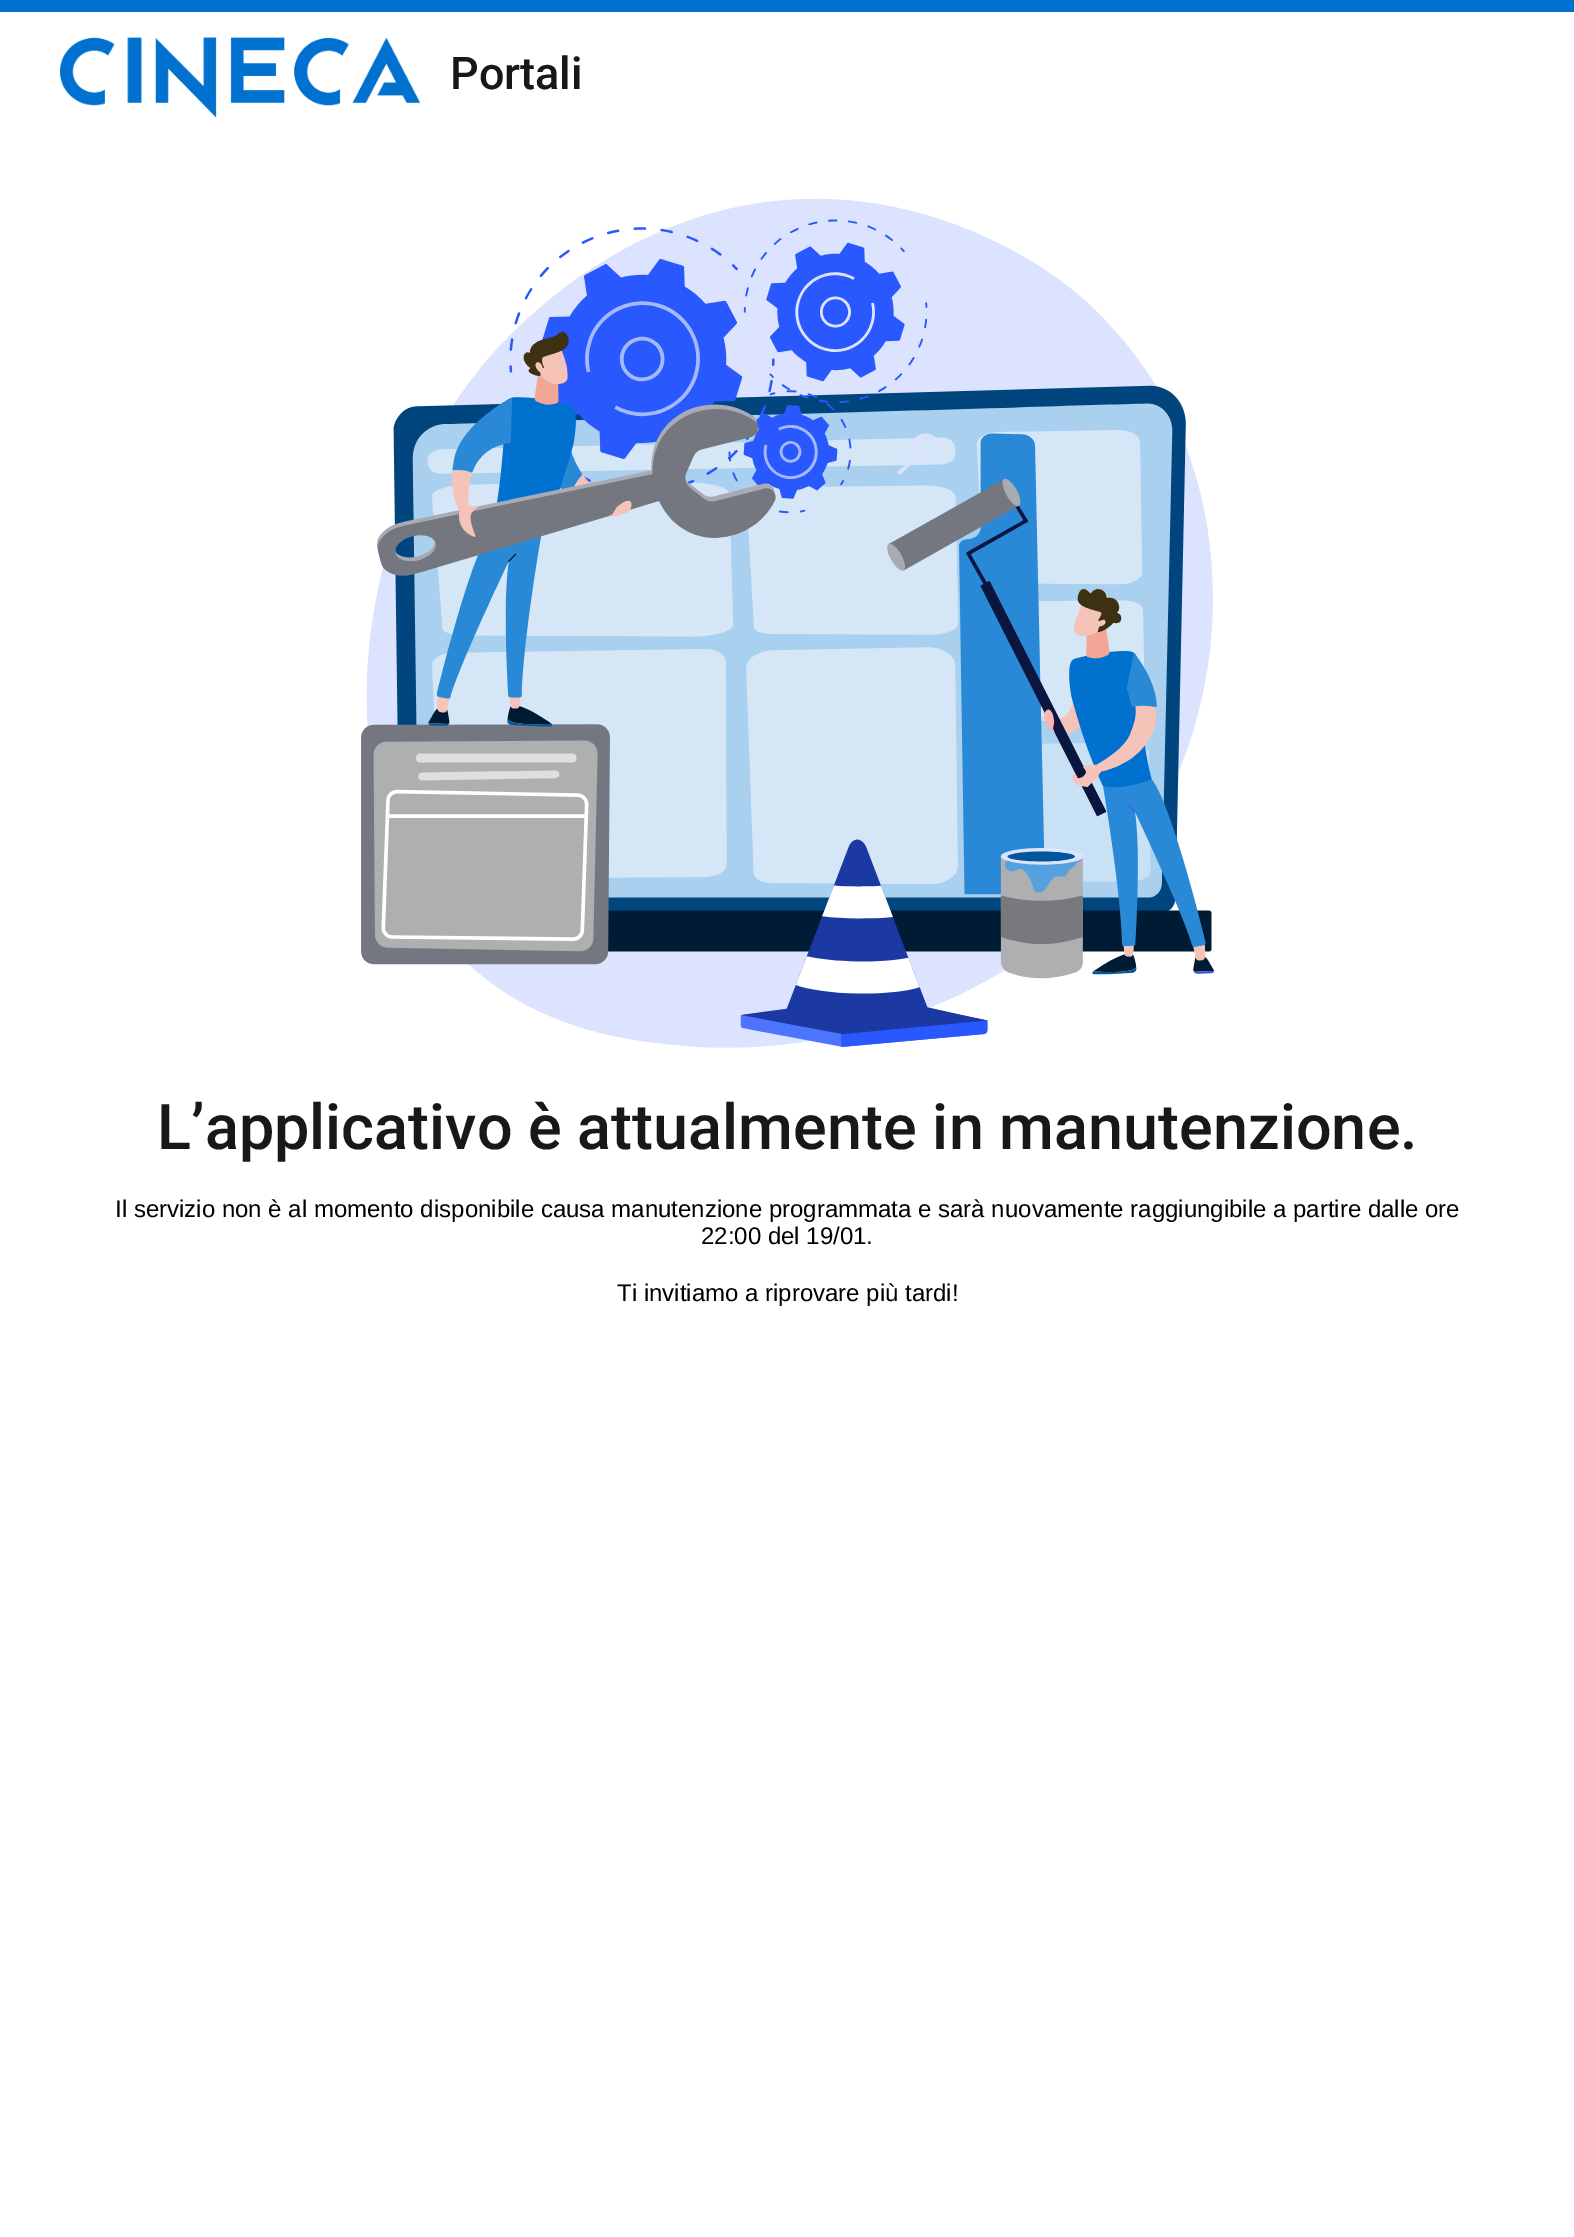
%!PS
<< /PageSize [1574 2237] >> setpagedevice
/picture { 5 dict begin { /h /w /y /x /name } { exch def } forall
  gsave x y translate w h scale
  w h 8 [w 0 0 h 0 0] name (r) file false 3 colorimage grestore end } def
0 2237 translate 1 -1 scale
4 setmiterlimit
1 setgray
0 0 1574 2237 rectfill
0 0.443 0.808 setrgbcolor
0 0 1574 12 rectfill
(img1.rgb) 60 37 360 81 picture
/Roboto-Medium [45 0 0 -45 0 0] selectfont
0.09 0.094 0.098 setrgbcolor
450 89 moveto (Portali) show
(img2.rgb) 361 198 853 850 picture
/Roboto-Medium [63 0 0 -63 0 0] selectfont
157 1149 moveto (L’applicativo è attualmente in manutenzione.) show
/LiberationSans-Regular [24 0 0 -24 0 0] selectfont
0 setgray
115 1217 moveto (Il servizio non è al momento disponibile causa manutenzione programmata e sarà nuovamente raggiungibile a partire dalle ore) show
701 1244 moveto (22:00 del 19/01.) show
617 1301 moveto (Ti invitiamo a riprovare più tardi!) show
showpage
